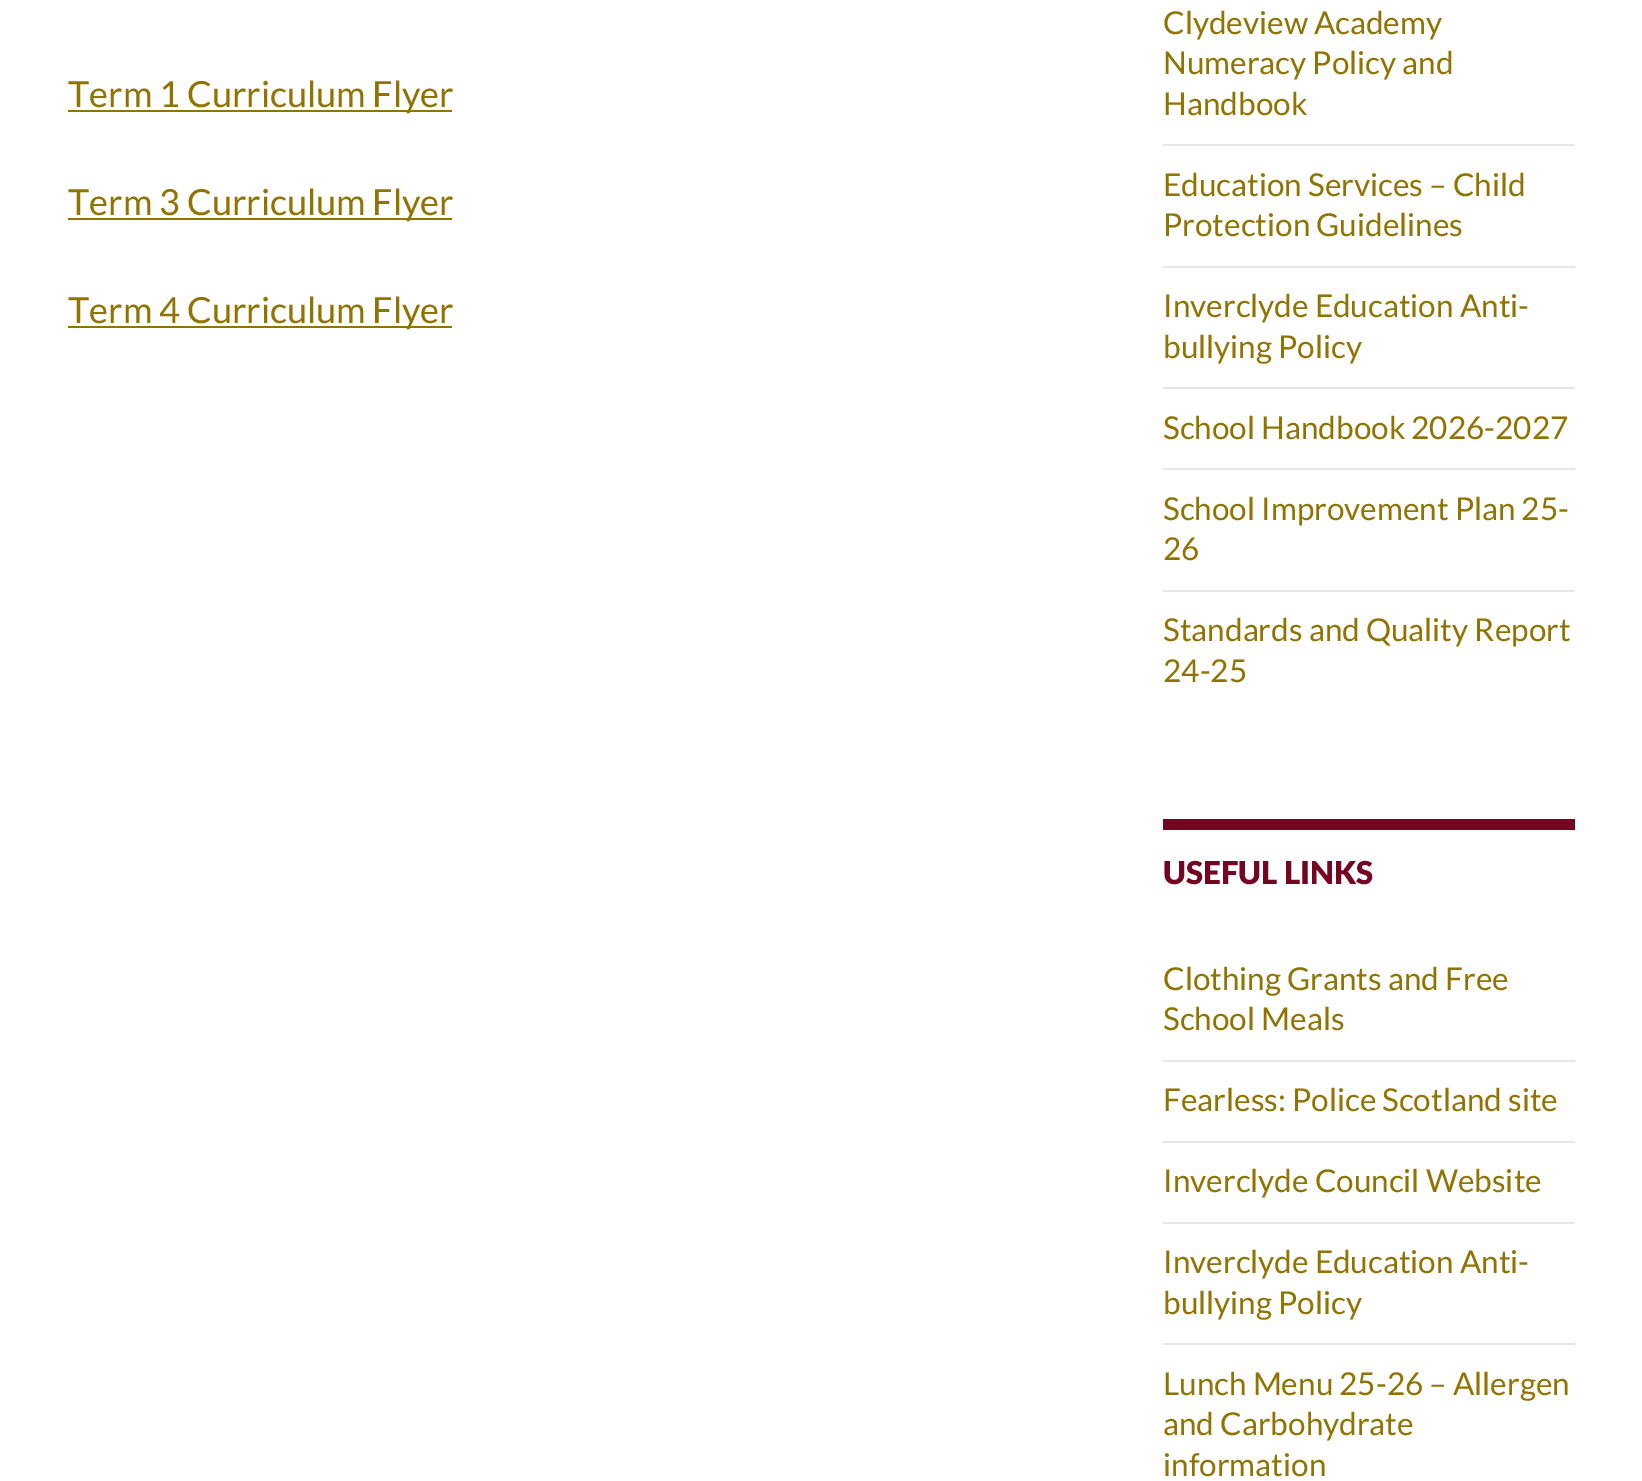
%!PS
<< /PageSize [1642 1481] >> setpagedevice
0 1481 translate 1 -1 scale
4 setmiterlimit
1 setgray
0 0 1642 1481 rectfill
0.565 0.451 0 setrgbcolor
68 110 384 2 rectfill
/Lato-Regular [36 0 0 -36 0 0] selectfont
68 107 moveto (Term 1 Curriculum Flyer) show
68 218 384 2 rectfill
68 215 moveto (Term 3 Curriculum Flyer) show
68 326 384 2 rectfill
68 323 moveto (Term 4 Curriculum Flyer) show
/Lato-Regular [31.5 0 0 -31.5 0 0] selectfont
1163 34 moveto (Clydeview Academy) show
1163 74 moveto (Numeracy Policy and) show
1163 115 moveto (Handbook) show
0.902 setgray
1163 144 412 2 rectfill
0.565 0.451 0 setrgbcolor
1163 196 moveto (Education Services – Child) show
1163 236 moveto (Protection Guidelines) show
0.902 setgray
1163 266 412 2 rectfill
0.565 0.451 0 setrgbcolor
1163 317 moveto (Inverclyde Education Anti-) show
1163 358 moveto (bullying Policy) show
0.902 setgray
1163 387 412 2 rectfill
0.565 0.451 0 setrgbcolor
1163 439 moveto (School Handbook 2026-2027) show
0.902 setgray
1163 468 412 2 rectfill
0.565 0.451 0 setrgbcolor
1163 520 moveto (School Improvement Plan 25-) show
1163 560 moveto (26) show
0.902 setgray
1163 590 412 2 rectfill
0.565 0.451 0 setrgbcolor
1163 641 moveto (Standards and Quality Report) show
1163 682 moveto (24-25) show
0.459 0.02 0.129 setrgbcolor
1163 819 412 11 rectfill
/Lato-Black [31.5 0 0 -31.5 0 0] selectfont
1163 884 moveto (USEFUL LINKS) show
/Lato-Regular [31.5 0 0 -31.5 0 0] selectfont
0.565 0.451 0 setrgbcolor
1163 990 moveto (Clothing Grants and Free) show
1163 1030 moveto (School Meals) show
0.902 setgray
1163 1060 412 2 rectfill
0.565 0.451 0 setrgbcolor
1163 1111 moveto (Fearless: Police Scotland site) show
0.902 setgray
1163 1141 412 2 rectfill
0.565 0.451 0 setrgbcolor
1163 1192 moveto (Inverclyde Council Website) show
0.902 setgray
1163 1222 412 2 rectfill
0.565 0.451 0 setrgbcolor
1163 1273 moveto (Inverclyde Education Anti-) show
1163 1314 moveto (bullying Policy) show
0.902 setgray
1163 1343 412 2 rectfill
0.565 0.451 0 setrgbcolor
1163 1395 moveto (Lunch Menu 25-26 – Allergen) show
1163 1435 moveto (and Carbohydrate) show
1163 1476 moveto (information) show
showpage
